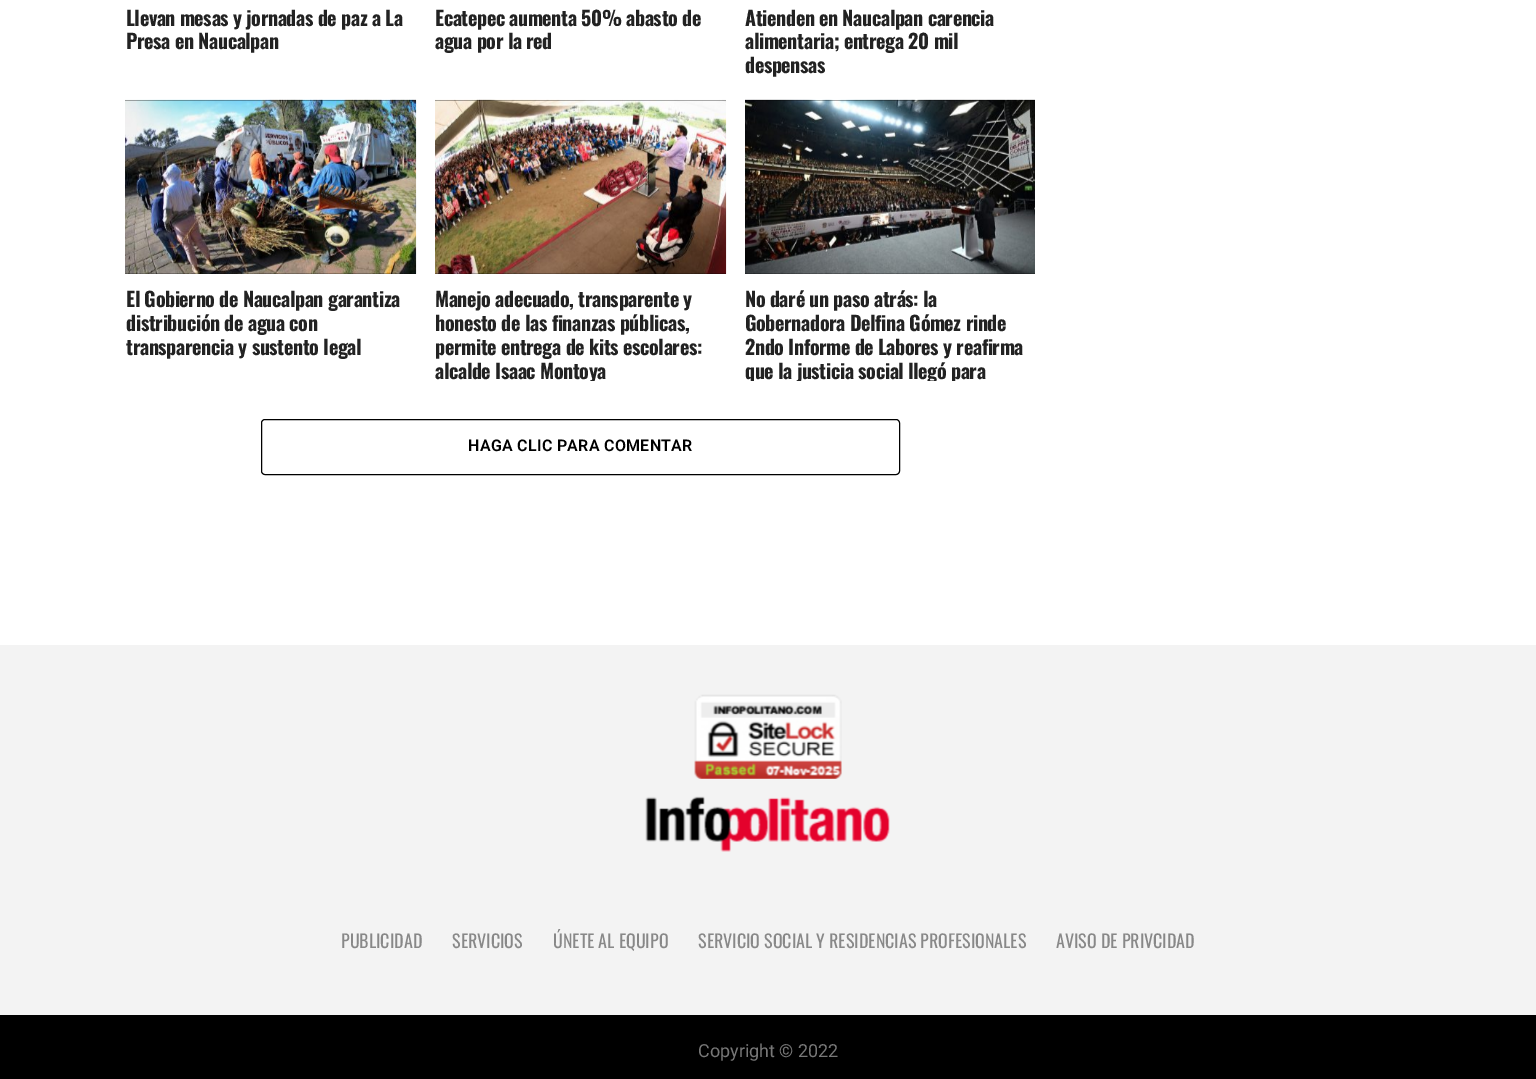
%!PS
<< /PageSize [1536 1079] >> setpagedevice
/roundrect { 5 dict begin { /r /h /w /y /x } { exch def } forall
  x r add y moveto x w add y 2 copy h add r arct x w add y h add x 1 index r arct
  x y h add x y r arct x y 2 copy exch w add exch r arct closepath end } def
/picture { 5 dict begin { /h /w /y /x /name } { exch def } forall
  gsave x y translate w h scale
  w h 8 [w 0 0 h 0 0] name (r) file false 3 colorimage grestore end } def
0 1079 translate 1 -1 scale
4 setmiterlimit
1 setgray
0 0 1536 1079 rectfill
/Oswald-Bold [20 0 0 -20 0 0] selectfont
0.133 setgray
126 26 moveto -0.4 0 (Llevan mesas y jornadas de paz a La) ashow
126 49 moveto -0.4 0 (Presa en Naucalpan) ashow
435 26 moveto -0.4 0 (Ecatepec aumenta 50% abasto de) ashow
435 49 moveto -0.4 0 (agua por la red) ashow
745 26 moveto -0.4 0 (Atienden en Naucalpan carencia) ashow
745 49 moveto -0.4 0 (alimentaria; entrega 20 mil) ashow
745 73 moveto -0.4 0 (despensas) ashow
0 setgray
125 100 291 174 rectfill
(img1.rgb) 125 99 292 175 picture
0.133 setgray
126 307 moveto -0.4 0 (El Gobierno de Naucalpan garantiza) ashow
126 331 moveto -0.4 0 (distribución de agua con) ashow
126 355 moveto -0.4 0 (transparencia y sustento legal) ashow
0 setgray
435 100 291 174 rectfill
(img2.rgb) 435 99 292 175 picture
0.133 setgray
435 307 moveto -0.4 0 (Manejo adecuado, transparente y) ashow
435 331 moveto -0.4 0 (honesto de las finanzas públicas,) ashow
435 355 moveto -0.4 0 (permite entrega de kits escolares:) ashow
gsave
435 100 291 281 rectclip
435 379 moveto -0.4 0 (alcalde Isaac Montoya) ashow
grestore
0 setgray
745 100 290 174 rectfill
(img3.rgb) 745 99 290 175 picture
0.133 setgray
745 307 moveto -0.4 0 (No daré un paso atrás: la) ashow
745 331 moveto -0.4 0 (Gobernadora Delfina Gómez rinde) ashow
745 355 moveto -0.4 0 (2ndo Informe de Labores y reafirma) ashow
gsave
745 100 290 281 rectclip
745 379 moveto -0.4 0 (que la justicia social llegó para) ashow
grestore
0 setgray
261.5 419.5 638 55 3.5 roundrect stroke
/Roboto-SemiBold [16 0 0 -16 0 0] selectfont
468 451 moveto 0.3 0 (HAGA CLIC PARA COMENTAR) ashow
0.953 setgray
0 645 1536 370 rectfill
(img4.rgb) 694 694 148 85 picture
(img5.rgb) 645 796 245 56 picture
/Oswald-Regular [18 0 0 -18 0 0] selectfont
0.533 setgray
341 948 moveto (PUBLICIDAD) show
452 948 moveto (SERVICIOS) show
553 948 moveto (ÚNETE AL EQUIPO) show
698 948 moveto (SERVICIO SOCIAL Y RESIDENCIAS PROFESIONALES) show
1056 948 moveto (AVISO DE PRIVCIDAD) show
0 setgray
0 1015 1536 64 rectfill
/Roboto-Regular [18 0 0 -18 0 0] selectfont
0.467 setgray
698 1057 moveto (Copyright © 2022) show
showpage
